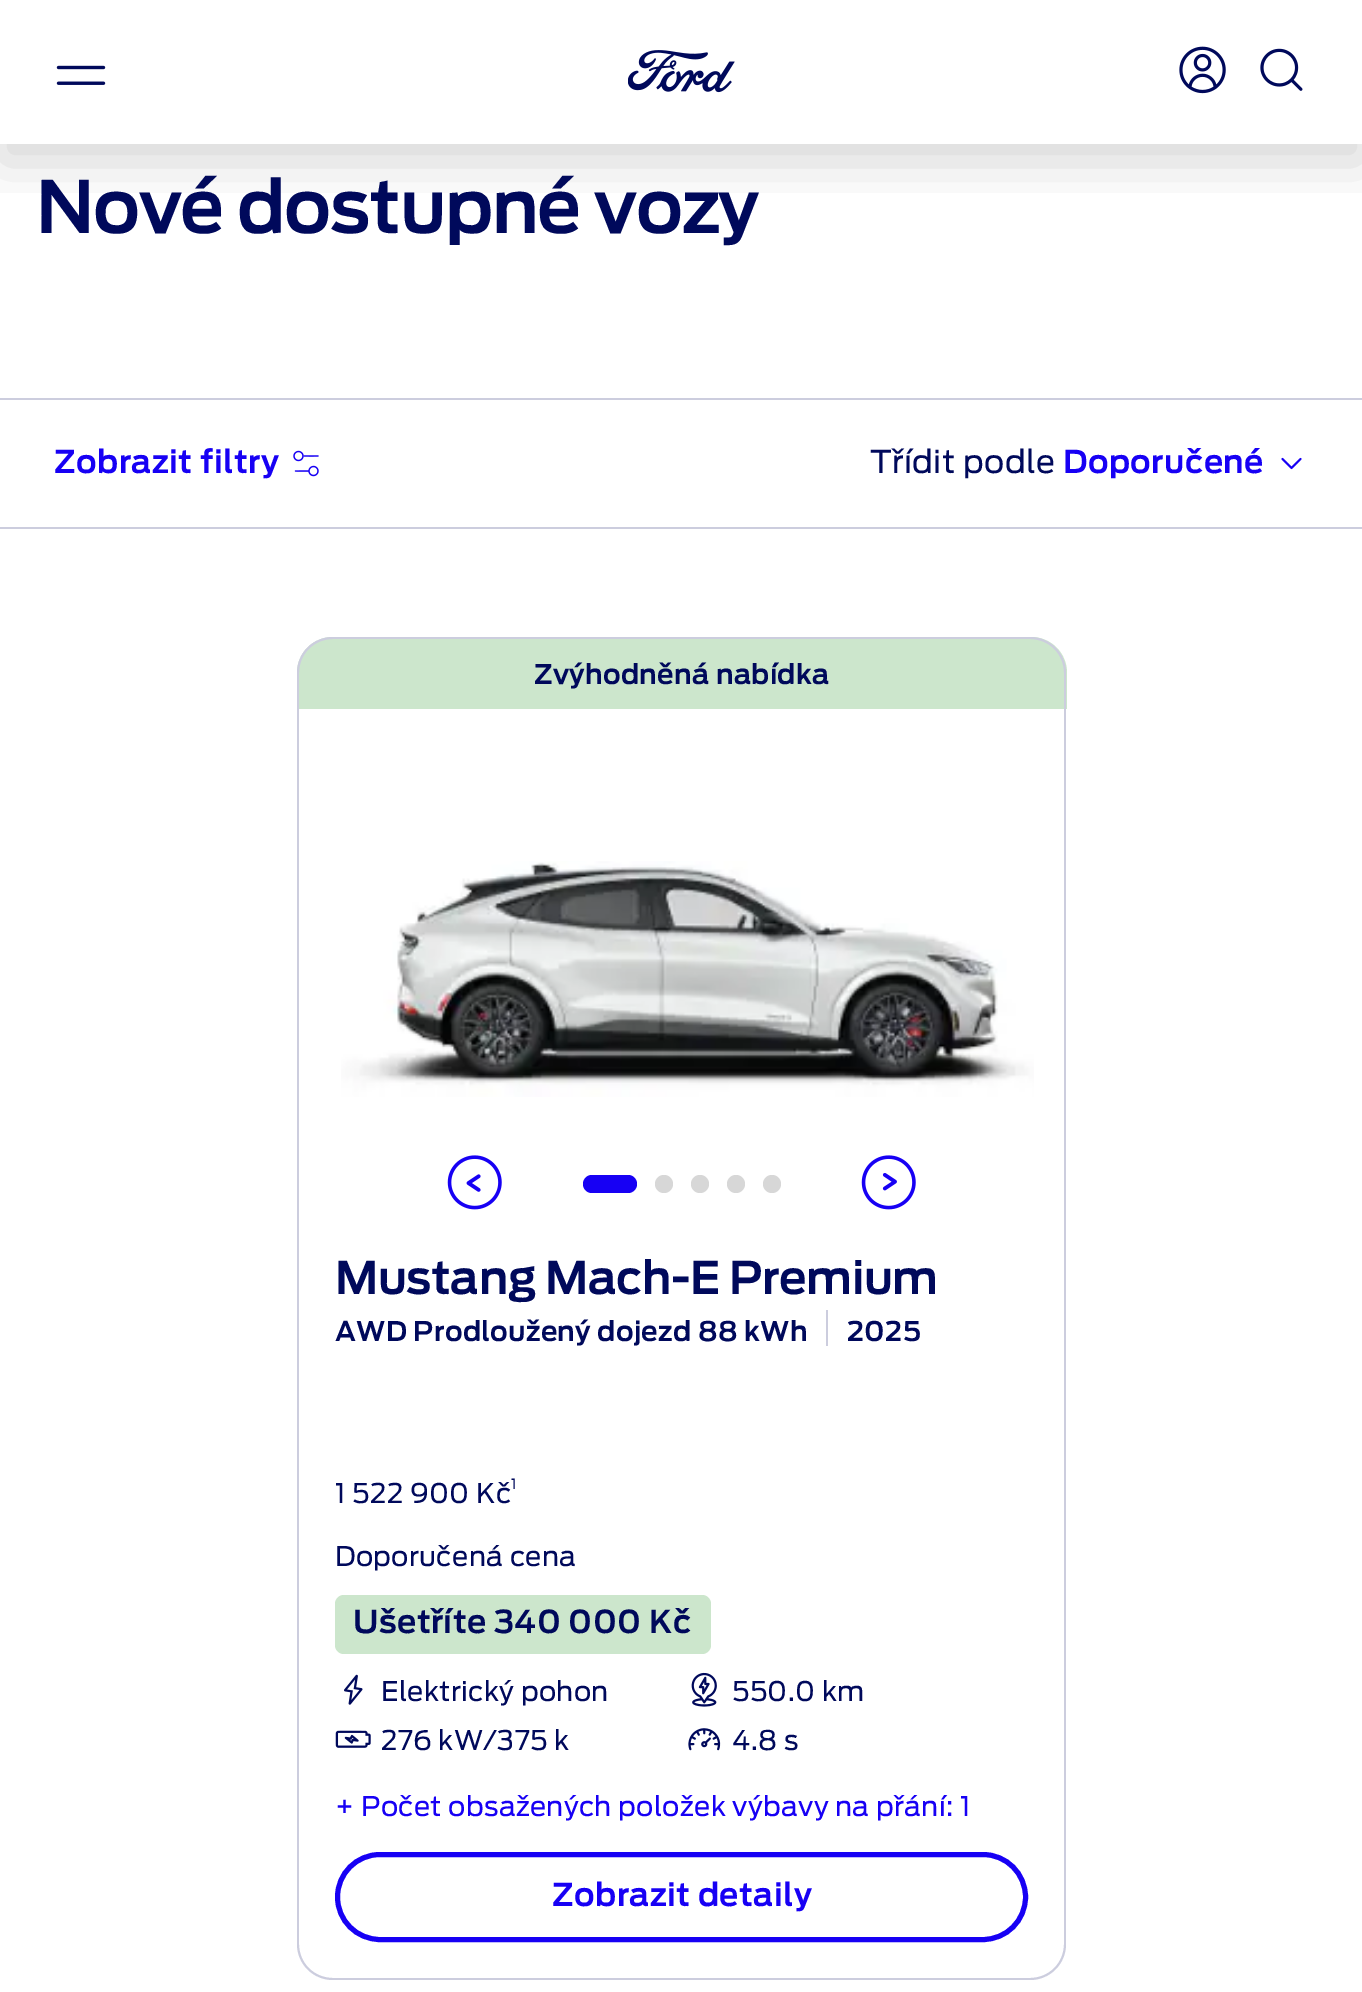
%!PS
<< /PageSize [1362 1992] /PageUsesTransparency true >> setpagedevice
/alpha { dup .setfillconstantalpha .setstrokeconstantalpha } def
/roundrect { 5 dict begin { /r /h /w /y /x } { exch def } forall
  x r add y moveto x w add y 2 copy h add r arct x w add y h add x 1 index r arct
  x y h add x y r arct x y 2 copy exch w add exch r arct closepath end } def
/shadow { 12 dict begin { /a /b /q /h /w /y /x } { exch def } forall gsave /was 0 def
  9 -2 -9 { dup b mul 4 div /e exch def 1 sub .425 mul 2.718 exch exp 1 add a .99 .min exch div /now exch def
    1 1 now sub 1 was sub div sub alpha /was now def
    w h .min e 2 mul add 0 gt { x e sub y e sub w e 2 mul add h e 2 mul add
      q e add b .6 mul add w h .min 2 div e add .min 0 .max roundrect fill } if } for grestore end } def
/picture { 5 dict begin { /h /w /y /x /name } { exch def } forall
  gsave x y translate w h scale
  w h 8 [w 0 0 h 0 0] name (r) file false 3 colorimage grestore end } def
0 .pushpdf14devicefilter
0 1992 translate 1 -1 scale
4 setmiterlimit
1 setgray
0 0 1362 1992 rectfill
gsave
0 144 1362 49 rectclip
0 setgray
0 18 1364 144 0 27 0.16 shadow
grestore
(img1.rgb) 56 65 50 20 picture
(img2.rgb) 628 50 107 43 picture
(img3.rgb) 1179 46 47 48 picture
(img4.rgb) 1260 48 43 43 picture
/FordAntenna-SemiBold [72 0 0 -72 0 0] selectfont
0 0.035 0.357 setrgbcolor
36 233 moveto -1.4 0 (Nové dostupné vozy) ashow
0.8 0.804 0.871 setrgbcolor
0 398 1362 2 rectfill
0 527 1362 2 rectfill
/FordAntenna-SemiBold [31.5 0 0 -31.5 0 0] selectfont
0.09 0 0.957 setrgbcolor
54 473 moveto 0.4 0 (Zobrazit filtry) ashow
(img5.rgb) 293 450 26 27 picture
/FordAntenna-Regular [31.5 0 0 -31.5 0 0] selectfont
0 0.035 0.357 setrgbcolor
870 473 moveto 0.4 0 (Třídit podle) ashow
/FordAntenna-SemiBold [31.5 0 0 -31.5 0 0] selectfont
0.09 0 0.957 setrgbcolor
1063 473 moveto 0.4 0 (Doporučené) ashow
(img6.rgb) 1281 457 21 13 picture
0.8 0.902 0.8 setrgbcolor
newpath 333 637 moveto 1031 637 lineto 1051 637 1067 653 1067 673 curveto 1067 709 lineto 297 709 lineto 297 673 lineto 297 653 313 637 333 637 curveto closepath fill
0.8 0.804 0.871 setrgbcolor
newpath 333 637 moveto 1030 637 lineto 1050 637 1066 653 1066 673 curveto 1066 709 lineto 297 709 lineto 297 673 lineto 297 653 313 637 333 637 curveto closepath 333 639 moveto 1030 639 lineto 1049 639 1064 654 1064 673 curveto 1064 709 lineto 299 709 lineto 299 673 lineto 299 654 314 639 333 639 curveto closepath eofill
/FordAntenna-SemiBold [27 0 0 -27 0 0] selectfont
0 0.035 0.357 setrgbcolor
534 684 moveto 0.3 0 (Zvýhodněná nabídka) ashow
0.8 0.804 0.871 setrgbcolor
newpath 297 709 moveto 1066 709 lineto 1066 1944 lineto 1066 1964 1050 1980 1030 1980 curveto 333 1980 lineto 313 1980 297 1964 297 1944 curveto closepath 299 709 moveto 1064 709 lineto 1064 1944 lineto 1064 1963 1049 1978 1030 1978 curveto 333 1978 lineto 314 1978 299 1963 299 1944 curveto closepath eofill
(img7.rgb) 341 861 693 236 picture
(img8.rgb) 447 1155 55 55 picture
0.09 0 0.957 setrgbcolor
583 1175 54 18 9 roundrect fill
0.843 setgray
newpath 664 1184 9 0 360 arc closepath fill
newpath 700 1184 9 0 360 arc closepath fill
newpath 736 1184 9 0 360 arc closepath fill
newpath 772 1184 9 0 360 arc closepath fill
(img9.rgb) 861 1155 55 55 picture
/FordAntenna-SemiBold [45 0 0 -45 0 0] selectfont
0 0.035 0.357 setrgbcolor
335 1294 moveto -0.5 0 (Mustang Mach-E Premium) ashow
/FordAntenna-SemiBold [27 0 0 -27 0 0] selectfont
335 1341 moveto 0.3 0 (AWD Prodloužený dojezd 88 kWh) ashow
0.8 0.804 0.871 setrgbcolor
826 1310 2 36 rectfill
0 0.035 0.357 setrgbcolor
847 1341 moveto 0.3 0 (2025) ashow
/FordAntenna-Regular [27 0 0 -27 0 0] selectfont
335 1503 moveto 0.3 0 (1 522 900 Kč) ashow
/FordAntenna-Regular [14 0 0 -14 0 0] selectfont
511 1489 moveto 0.3 0 (1) ashow
/FordAntenna-Regular [27 0 0 -27 0 0] selectfont
335 1566 moveto 0.3 0 (Doporučená cena) ashow
0.8 0.902 0.8 setrgbcolor
335 1595 376 59 9 roundrect fill
/FordAntenna-SemiBold [31.5 0 0 -31.5 0 0] selectfont
0 0.035 0.357 setrgbcolor
353 1633 moveto 0.4 0 (Ušetříte 340 000 Kč) ashow
(img10.rgb) 344 1674 19 31 picture
/FordAntenna-Regular [27 0 0 -27 0 0] selectfont
381 1701 moveto 0.3 0 (Elektrický pohon) ashow
(img11.rgb) 691 1672 26 35 picture
732 1701 moveto 0.3 0 (550.0 km) ashow
(img12.rgb) 335 1730 36 18 picture
381 1750 moveto 0.3 0 (276 kW/375 k) ashow
(img13.rgb) 688 1728 33 23 picture
732 1750 moveto 0.3 0 (4.8 s) ashow
0.09 0 0.957 setrgbcolor
335 1816 moveto 0.3 0 (+ Počet obsažených položek výbavy na přání: 1) ashow
5 setlinewidth
337.5 1854.5 688 85 42.5 roundrect stroke
/FordAntenna-SemiBold [31.5 0 0 -31.5 0 0] selectfont
552 1906 moveto 0.4 0 (Zobrazit detaily) ashow
.poppdf14devicefilter showpage
